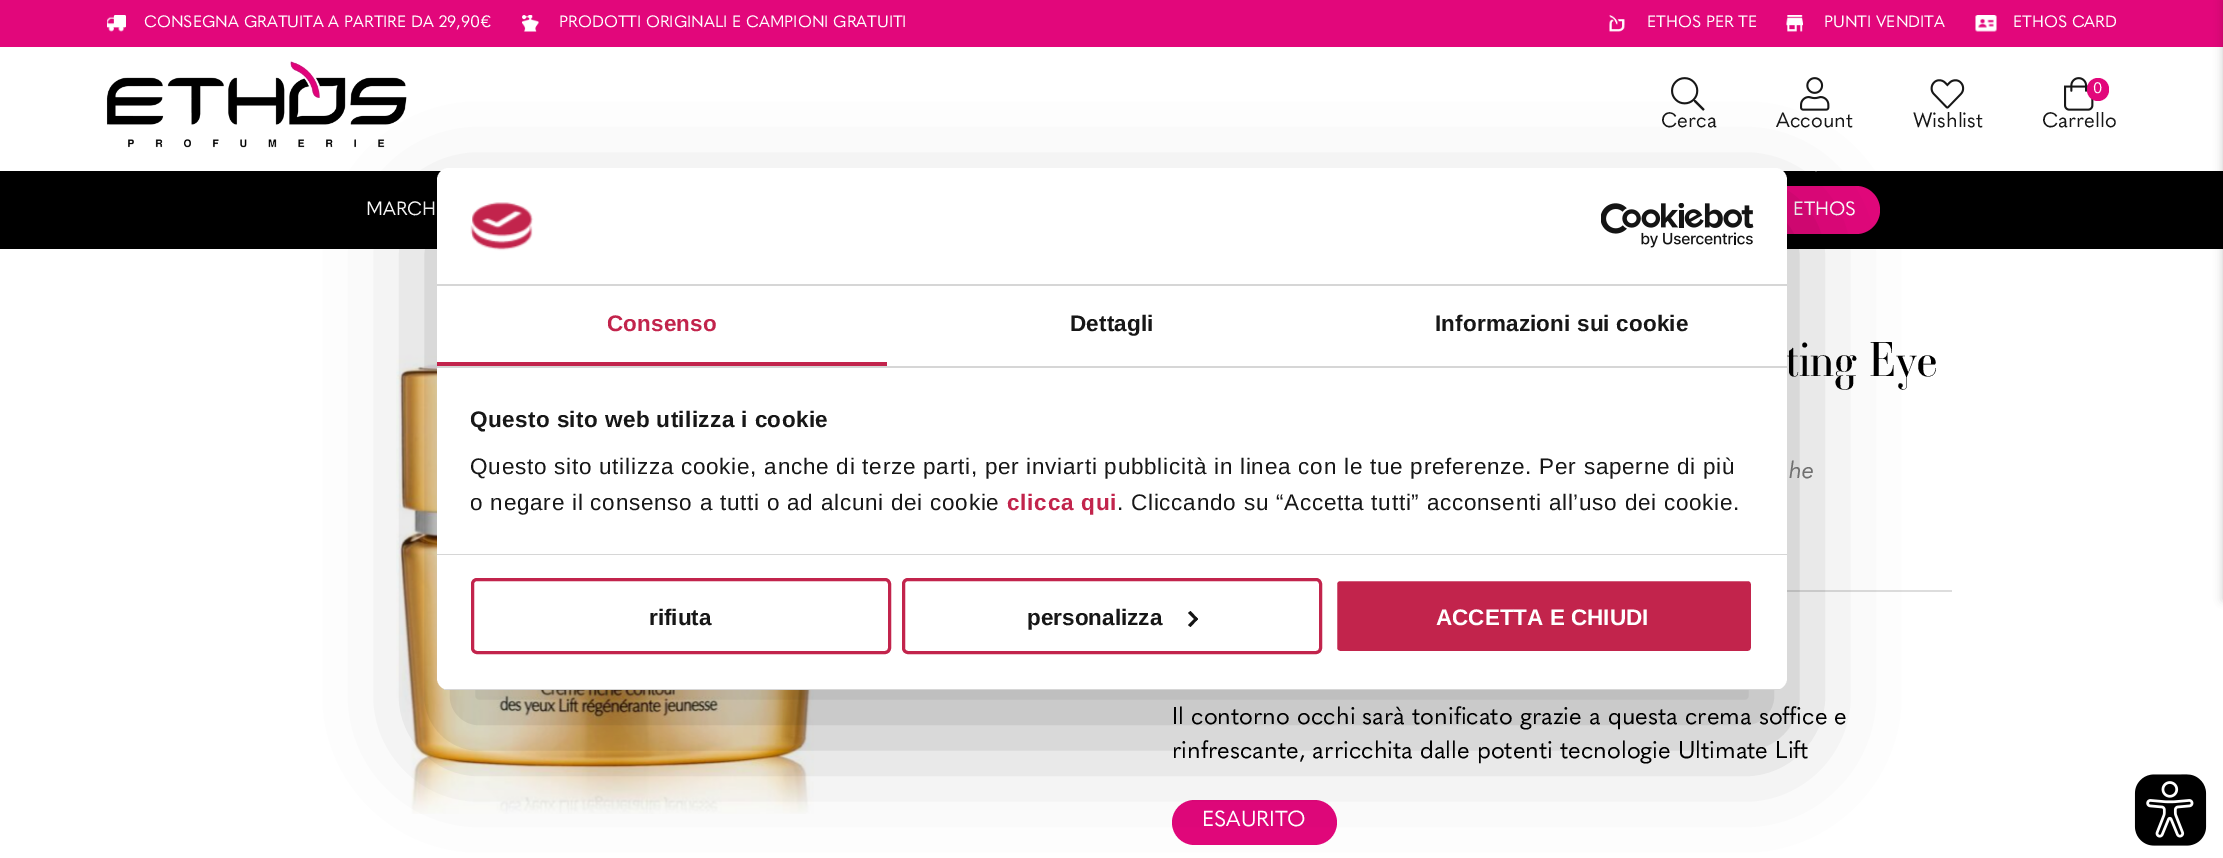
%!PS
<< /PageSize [2223 858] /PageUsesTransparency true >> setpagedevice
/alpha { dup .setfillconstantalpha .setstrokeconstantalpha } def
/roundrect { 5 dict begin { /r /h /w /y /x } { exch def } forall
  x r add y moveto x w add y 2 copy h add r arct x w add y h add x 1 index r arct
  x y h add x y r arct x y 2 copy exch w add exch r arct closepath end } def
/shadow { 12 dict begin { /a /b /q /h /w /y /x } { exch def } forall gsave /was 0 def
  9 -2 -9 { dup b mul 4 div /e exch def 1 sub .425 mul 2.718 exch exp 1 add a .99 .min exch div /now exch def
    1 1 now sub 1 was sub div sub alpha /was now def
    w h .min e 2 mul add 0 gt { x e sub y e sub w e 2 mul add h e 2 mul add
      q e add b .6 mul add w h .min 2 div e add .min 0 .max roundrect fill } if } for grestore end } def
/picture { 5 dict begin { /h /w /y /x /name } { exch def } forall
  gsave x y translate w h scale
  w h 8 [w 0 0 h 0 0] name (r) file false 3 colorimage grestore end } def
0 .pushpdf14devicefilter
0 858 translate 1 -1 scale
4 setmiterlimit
1 setgray
0 0 2223 858 rectfill
0.886 0.027 0.482 setrgbcolor
0 0 2223 47 rectfill
(img1.rgb) 107 15 19 17 picture
/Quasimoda-Regular [16.2 0 0 -16.2 0 0] selectfont
1 setgray
144 27 moveto (CONSEGNA GRATUITA A PARTIRE DA 29,90€) show
(img2.rgb) 522 15 17 17 picture
559 27 moveto (PRODOTTI ORIGINALI E CAMPIONI GRATUITI) show
(img3.rgb) 1609 15 16 17 picture
1647 27 moveto (ETHOS PER TE) show
(img4.rgb) 1786 15 17 17 picture
1824 27 moveto (PUNTI VENDITA) show
(img5.rgb) 1975 15 22 17 picture
2013 27 moveto (ETHOS CARD) show
(img6.rgb) 106 61 301 87 picture
(img7.rgb) 1671 77 34 34 picture
/Quasimoda-Regular [20.5 0 0 -20.5 0 0] selectfont
0.09 setgray
1661 127 moveto (Cerca) show
(img8.rgb) 1800 77 30 34 picture
1776 127 moveto (Account) show
0 setgray
0 171 2223 78 rectfill
1 setgray
newpath 1816 135 moveto 1834 153.5 lineto 1816 171.5 lineto 1798 153.5 lineto closepath fill
(img9.rgb) 1930 79 35 30 picture
0.09 setgray
1913 127 moveto (Wishlist) show
(img10.rgb) 2064 77 30 34 picture
0.886 0.027 0.482 setrgbcolor
2087 78 22 23 11 roundrect fill
/Quasimoda-Regular [15 0 0 -15 0 0] selectfont
1 setgray
2093 93 moveto (0) show
/Quasimoda-Regular [20.5 0 0 -20.5 0 0] selectfont
0.09 setgray
2042 127 moveto (Carrello) show
/Quasimoda-Regular [19 0 0 -19 0 0] selectfont
1 setgray
366 215 moveto (MARCH) show
0.886 0.027 0.482 setrgbcolor
1665 186 215 48 24 roundrect fill
1 setgray
1793 215 moveto (ETHOS) show
0 setgray
2223 0 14 600 0 4.5 0.2 shadow
(img13.rgb) 396 351 430 463 picture
0.867 setgray
1787 590 165 2 rectfill
0.886 0.027 0.482 setrgbcolor
1172 800 165 45 22.5 roundrect fill
0 setgray
437 216 1350 522 12 51 0.3 shadow
/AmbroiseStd-Regular [48 0 0 -48 0 0] selectfont
1786 376 moveto (ting Eye) show
1 setgray
437 168 1350 522 12 roundrect fill
0.839 setgray
437 284 1350 2 rectfill
(img11.rgb) 470 202 64 49 picture
(img12.rgb) 1601 203 153 45 picture
437 366 1350 2 rectfill
0.761 0.141 0.298 setrgbcolor
437 362 450 4 rectfill
/LiberationSans-Bold [22.5 0 0 -22.5 0 0] selectfont
607 331 moveto 0.15 0 (Consenso) ashow
0.09 setgray
1070 331 moveto 0.15 0 (Dettagli) ashow
1435 331 moveto 0.15 0 (Informazioni sui cookie) ashow
0.839 setgray
437 554 1350 1 rectfill
0.09 setgray
470 427 moveto 0.4 0 (Questo sito web utilizza i cookie) ashow
/LiberationSans-Regular [22.5 0 0 -22.5 0 0] selectfont
470 474 moveto 0.75 0 (Questo sito utilizza cookie, anche di terze parti, per inviarti pubblicità in linea con le tue preferenze. Per saperne di più) ashow
470 510 moveto 0.75 0 (o negare il consenso a tutti o ad alcuni dei cookie) ashow
/LiberationSans-Bold [22.5 0 0 -22.5 0 0] selectfont
0.761 0.141 0.298 setrgbcolor
1007 510 moveto 0.75 0 (clicca qui) ashow
/LiberationSans-Regular [22.5 0 0 -22.5 0 0] selectfont
0.09 setgray
1117 510 moveto 0.75 0 (. Cliccando su “Accetta tutti” acconsenti all’uso dei cookie.) ashow
gsave
437 168 1350 522 12 roundrect clip newpath
0.839 setgray
437 689 1350 1 rectfill
grestore
0.761 0.141 0.298 setrgbcolor
3 setlinewidth
472.5 579.5 417 73 4.5 roundrect stroke
/LiberationSans-Bold [22.5 0 0 -22.5 0 0] selectfont
0.09 setgray
649 625 moveto (rifiuta) show
0.761 0.141 0.298 setrgbcolor
903.5 579.5 417 73 4.5 roundrect stroke
0.09 setgray
1027 625 moveto (personalizza) show
0.078 setgray
newpath 1190.5 611 moveto 1198 619 lineto 1196 621 lineto 1188 613 lineto closepath fill
newpath 1196 617 moveto 1198 619 lineto 1190.5 627 lineto 1188 625 lineto closepath fill
0.761 0.141 0.298 setrgbcolor
1335.5 579.5 417 73 4.5 roundrect gsave fill grestore
1 setgray
stroke
1436 625 moveto (ACCETTA E CHIUDI) show
/Quasimoda-Italic [24 0 0 -24 0 0] selectfont
0.439 setgray
1789 478 moveto (he) show
/Quasimoda-Regular [24 0 0 -24 0 0] selectfont
0 setgray
1172 724 moveto (Il contorno occhi sarà tonificato grazie a questa crema soffice e) show
1172 758 moveto (rinfrescante, arricchita dalle potenti tecnologie Ultimate Lift) show
/Quasimoda-Regular [21.5 0 0 -21.5 0 0] selectfont
1 setgray
1202 826 moveto (ESAURITO) show
(img14.rgb) 2134 774 73 72 picture
.poppdf14devicefilter showpage
